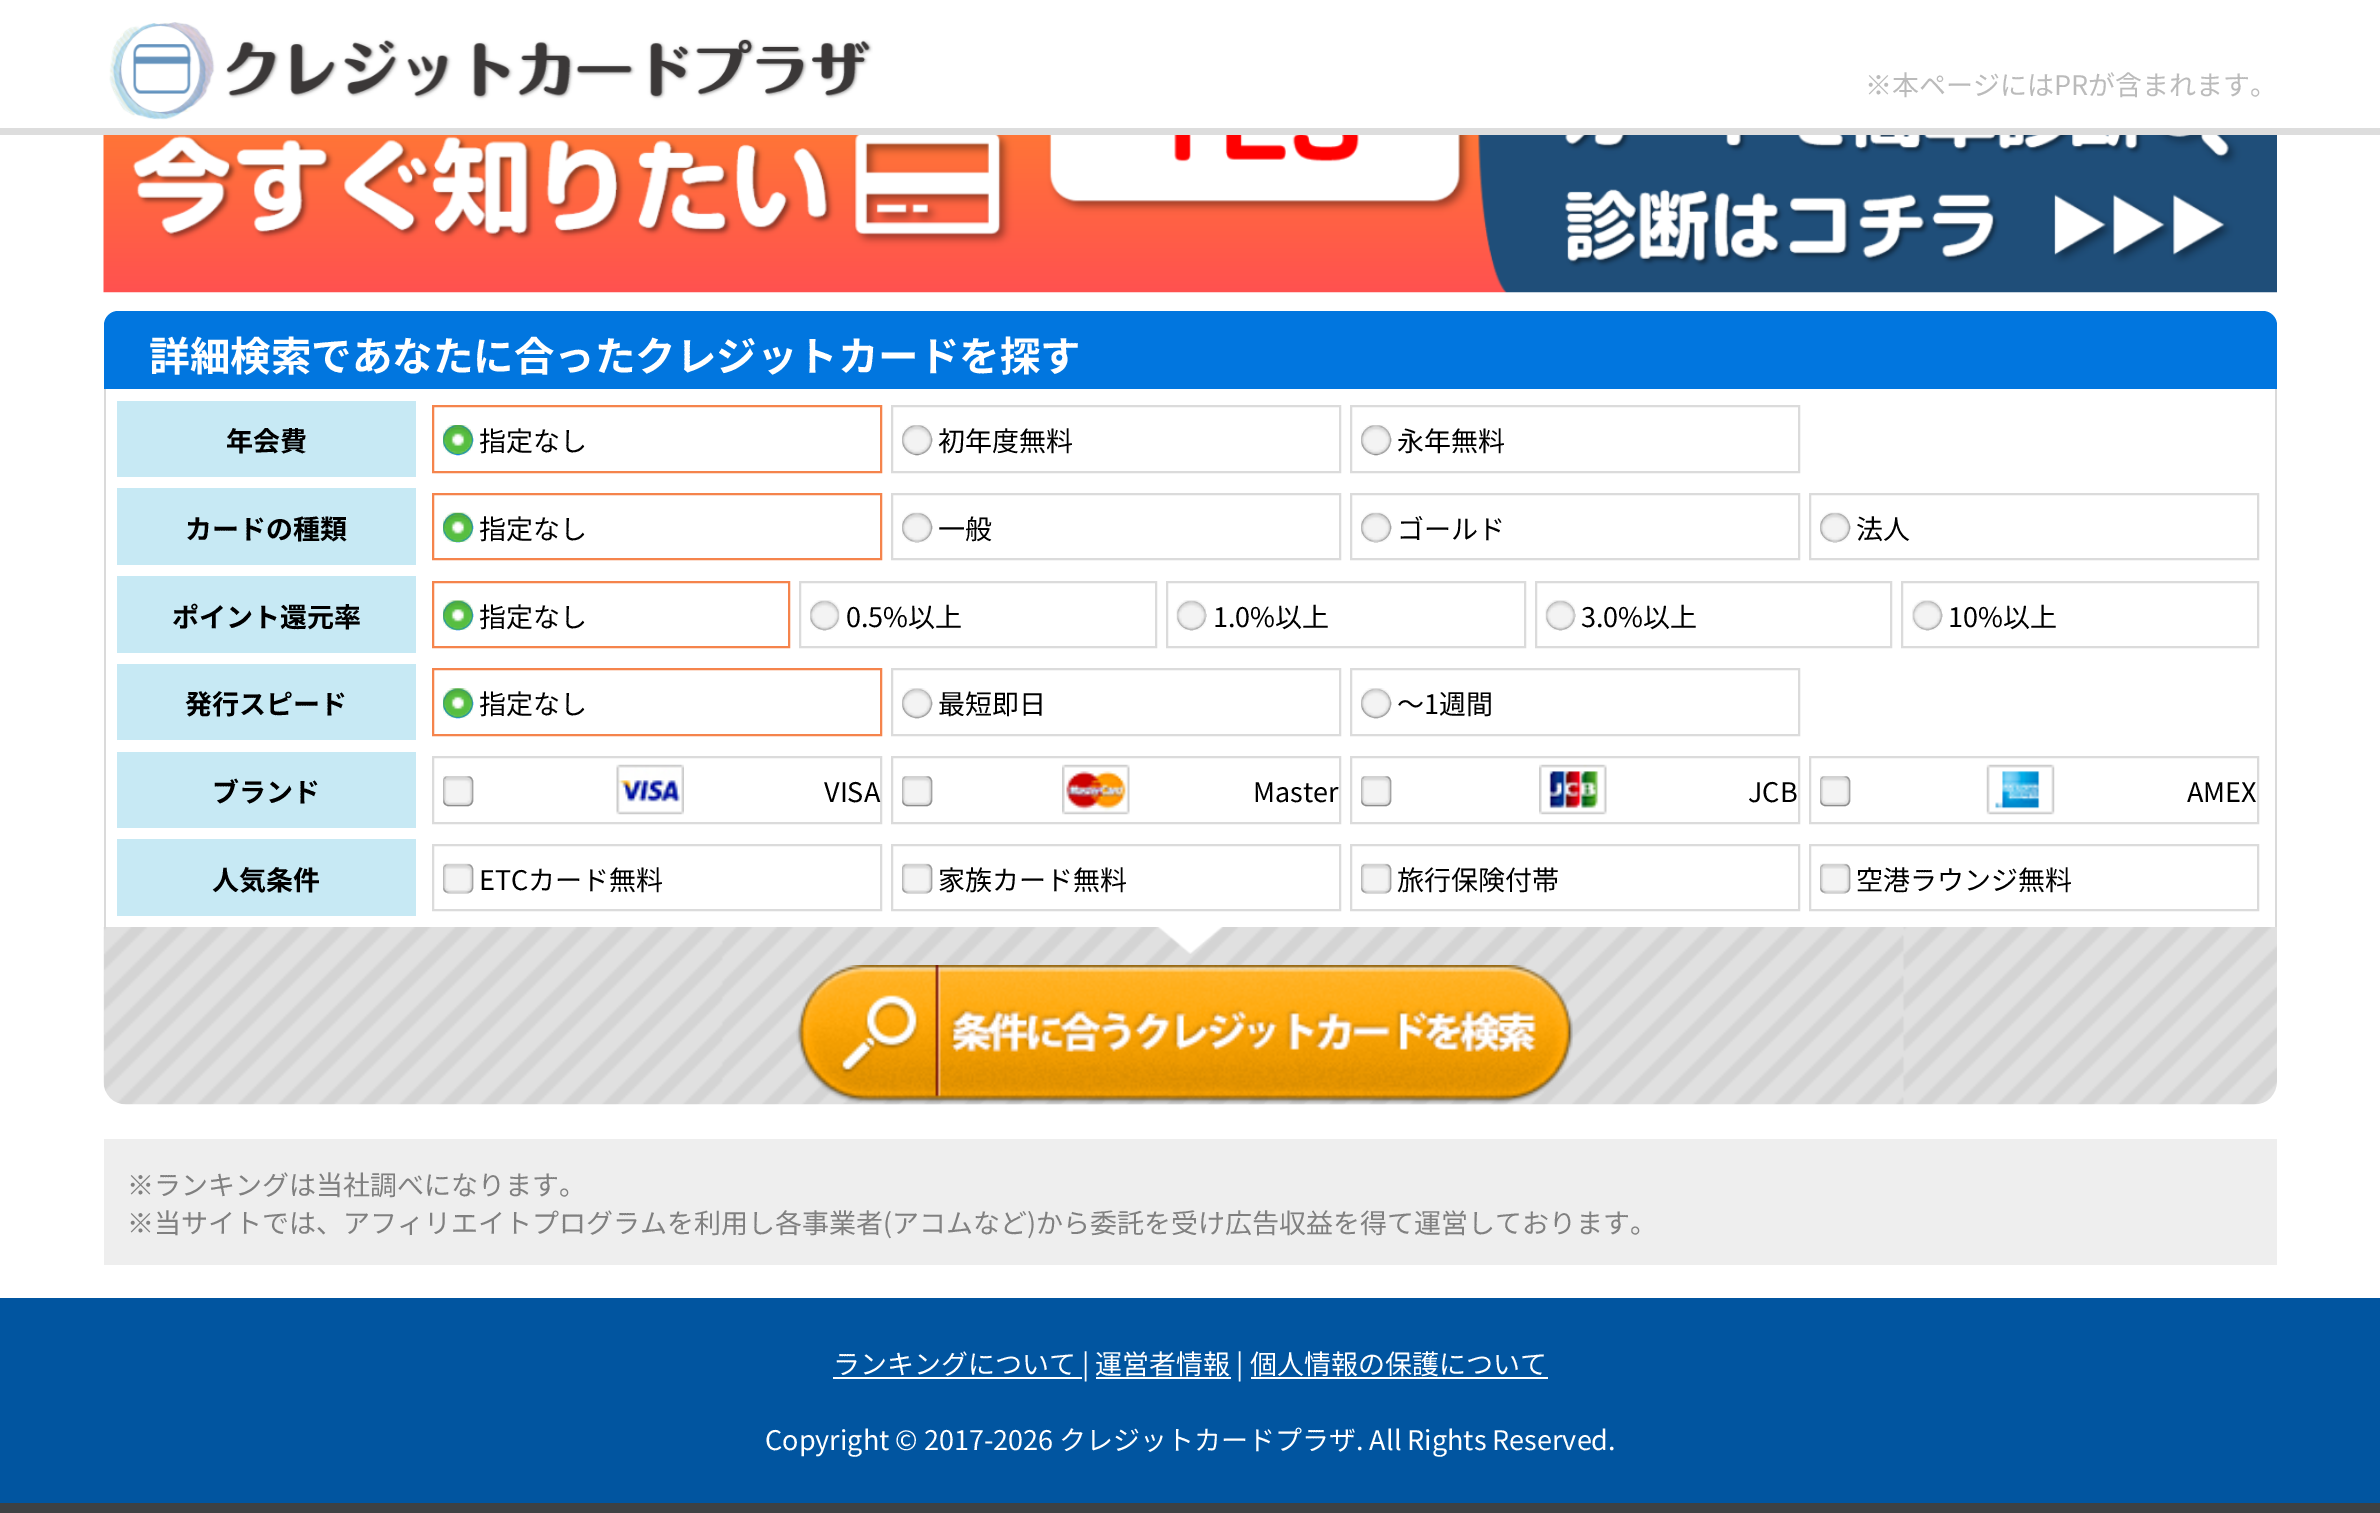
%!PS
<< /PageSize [2380 1513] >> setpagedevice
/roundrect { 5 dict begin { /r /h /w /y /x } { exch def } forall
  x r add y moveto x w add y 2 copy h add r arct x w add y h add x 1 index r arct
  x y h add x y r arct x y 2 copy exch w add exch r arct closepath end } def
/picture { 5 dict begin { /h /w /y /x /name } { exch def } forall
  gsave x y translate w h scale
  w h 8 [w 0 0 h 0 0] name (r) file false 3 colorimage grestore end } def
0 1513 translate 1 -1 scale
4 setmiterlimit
1 setgray
0 0 2380 1513 rectfill
0.867 setgray
0 128 2380 7 rectfill
(img1.rgb) 109 22 764 98 picture
/NotoSansJP-Regular [27 0 0 -27 0 0] selectfont
0.733 setgray
1865 95 moveto (※本ページにはPRが含まれます。) show
(img2.rgb) 103 135 2174 158 picture
0.004 0.463 0.875 setrgbcolor
newpath 118 311 moveto 2263 311 lineto 2270.5 311 2277 317.5 2277 325 curveto 2277 389 lineto 104 389 lineto 104 325 lineto 104 317.5 110.5 311 118 311 curveto closepath fill
/NotoSansJP-Bold [40.5 0 0 -40.5 0 0] selectfont
1 setgray
149 371 moveto (詳細検索であなたに合ったクレジットカードを探す) show
0.855 setgray
2275 389 2 538 rectfill
104 389 2 538 rectfill
0.78 0.914 0.957 setrgbcolor
117 401 299 76 rectfill
/NotoSansJP-Bold [27 0 0 -27 0 0] selectfont
0 setgray
226 451 moveto (年会費) show
0.961 0.518 0.298 setrgbcolor
2 setlinewidth
433 406 448 66 rectstroke
0 0.459 1 setrgbcolor
newpath 458 440 14 0 360 arc closepath stroke
(img3.rgb) 443 425 30 30 picture
/NotoSansJP-Regular [27 0 0 -27 0 0] selectfont
0 setgray
479 451 moveto (指定なし) show
0.859 setgray
892 406 448 66 rectstroke
0.463 setgray
newpath 917 440 14 0 360 arc closepath stroke
(img4.rgb) 902 425 30 30 picture
0 setgray
938 451 moveto (初年度無料) show
0.859 setgray
1351 406 448 66 rectstroke
0.463 setgray
newpath 1376 440 14 0 360 arc closepath stroke
(img5.rgb) 1361 425 30 30 picture
0 setgray
1397 451 moveto (永年無料) show
0.78 0.914 0.957 setrgbcolor
117 488 299 77 rectfill
/NotoSansJP-Bold [27 0 0 -27 0 0] selectfont
0 setgray
185 539 moveto (カードの種類) show
0.961 0.518 0.298 setrgbcolor
433 494 448 65 rectstroke
0 0.459 1 setrgbcolor
444 514 28 27 13.5 roundrect stroke
(img6.rgb) 443 512 30 30 picture
/NotoSansJP-Regular [27 0 0 -27 0 0] selectfont
0 setgray
479 539 moveto (指定なし) show
0.859 setgray
892 494 448 65 rectstroke
0.463 setgray
903 514 28 27 13.5 roundrect stroke
(img7.rgb) 902 512 30 30 picture
0 setgray
938 539 moveto (一般) show
0.859 setgray
1351 494 448 65 rectstroke
0.463 setgray
1362 514 28 27 13.5 roundrect stroke
(img8.rgb) 1361 512 30 30 picture
0 setgray
1397 539 moveto (ゴールド) show
0.859 setgray
1810 494 448 65 rectstroke
0.463 setgray
1821 514 28 27 13.5 roundrect stroke
(img8.rgb) 1820 512 30 30 picture
0 setgray
1856 539 moveto (法人) show
0.78 0.914 0.957 setrgbcolor
117 576 299 77 rectfill
/NotoSansJP-Bold [27 0 0 -27 0 0] selectfont
0 setgray
172 627 moveto (ポイント還元率) show
0.961 0.518 0.298 setrgbcolor
433 582 356 65 rectstroke
0 0.459 1 setrgbcolor
444 602 28 27 13.5 roundrect stroke
(img9.rgb) 443 600 30 30 picture
/NotoSansJP-Regular [27 0 0 -27 0 0] selectfont
0 setgray
479 627 moveto (指定なし) show
0.859 setgray
800 582 356 65 rectstroke
0.463 setgray
newpath 824.5 615.5 13.5 0 360 arc closepath stroke
(img10.rgb) 810 600 30 30 picture
0 setgray
846 627 moveto (0.5%以上) show
0.859 setgray
1167 582 358 65 rectstroke
0.463 setgray
newpath 1191.5 615.5 13.5 0 360 arc closepath stroke
(img11.rgb) 1176 600 30 30 picture
0 setgray
1213 627 moveto (1.0%以上) show
0.859 setgray
1536 582 355 65 rectstroke
0.463 setgray
newpath 1560.5 615.5 13.5 0 360 arc closepath stroke
(img12.rgb) 1545 600 30 30 picture
0 setgray
1581 627 moveto (3.0%以上) show
0.859 setgray
1902 582 356 65 rectstroke
0.463 setgray
newpath 1927.5 615.5 13.5 0 360 arc closepath stroke
(img13.rgb) 1912 600 30 30 picture
0 setgray
1948 627 moveto (10%以上) show
0.78 0.914 0.957 setrgbcolor
117 664 299 76 rectfill
/NotoSansJP-Bold [27 0 0 -27 0 0] selectfont
0 setgray
185 714 moveto (発行スピード) show
0.961 0.518 0.298 setrgbcolor
433 669 448 66 rectstroke
0 0.459 1 setrgbcolor
444 690 28 27 13.5 roundrect stroke
(img14.rgb) 443 688 30 30 picture
/NotoSansJP-Regular [27 0 0 -27 0 0] selectfont
0 setgray
479 714 moveto (指定なし) show
0.859 setgray
892 669 448 66 rectstroke
0.463 setgray
903 690 28 27 13.5 roundrect stroke
(img15.rgb) 902 688 30 30 picture
0 setgray
938 714 moveto (最短即日) show
0.859 setgray
1351 669 448 66 rectstroke
0.463 setgray
1362 690 28 27 13.5 roundrect stroke
(img16.rgb) 1361 688 30 30 picture
0 setgray
1397 714 moveto (～1週間) show
0.78 0.914 0.957 setrgbcolor
117 752 299 76 rectfill
/NotoSansJP-Bold [27 0 0 -27 0 0] selectfont
0 setgray
212 802 moveto (ブランド) show
0.859 setgray
433 757 448 66 rectstroke
0.463 setgray
444 777 28 28 4 roundrect stroke
(img17.rgb) 443 776 30 30 picture
(img18.rgb) 616 764 68 51 picture
/NotoSansJP-Regular [27 0 0 -27 0 0] selectfont
0 setgray
824 802 moveto (VISA) show
0.859 setgray
892 757 448 66 rectstroke
0.463 setgray
903 777 28 28 4 roundrect stroke
(img19.rgb) 902 776 30 30 picture
(img20.rgb) 1062 764 68 51 picture
0 setgray
1253 802 moveto (Master) show
0.859 setgray
1351 757 448 66 rectstroke
0.463 setgray
1362 777 28 28 4 roundrect stroke
(img17.rgb) 1361 776 30 30 picture
(img21.rgb) 1539 764 68 51 picture
0 setgray
1748 802 moveto (JCB) show
0.859 setgray
1810 757 448 66 rectstroke
0.463 setgray
1821 777 28 28 4 roundrect stroke
(img17.rgb) 1820 776 30 30 picture
(img22.rgb) 1986 764 69 51 picture
0 setgray
2187 802 moveto (AMEX) show
0.78 0.914 0.957 setrgbcolor
117 839 299 77 rectfill
/NotoSansJP-Bold [27 0 0 -27 0 0] selectfont
0 setgray
212 890 moveto (人気条件) show
0.859 setgray
433 845 448 65 rectstroke
0.463 setgray
444 865 28 27 4 roundrect stroke
(img23.rgb) 443 863 30 30 picture
/NotoSansJP-Regular [27 0 0 -27 0 0] selectfont
0 setgray
479 890 moveto (ETCカード無料) show
0.859 setgray
892 845 448 65 rectstroke
0.463 setgray
903 865 28 27 4 roundrect stroke
(img24.rgb) 902 863 30 30 picture
0 setgray
938 890 moveto (家族カード無料) show
0.859 setgray
1351 845 448 65 rectstroke
0.463 setgray
1362 865 28 27 4 roundrect stroke
(img23.rgb) 1361 863 30 30 picture
0 setgray
1397 890 moveto (旅行保険付帯) show
0.859 setgray
1810 845 448 65 rectstroke
0.463 setgray
1821 865 28 27 4 roundrect stroke
(img23.rgb) 1820 863 30 30 picture
0 setgray
1856 890 moveto (空港ラウンジ無料) show
(img25.rgb) 103 927 2174 178 picture
(img26.rgb) 1158 927 65 27 picture
(img27.rgb) 796 965 777 140 picture
0.933 setgray
104 1139 2173 126 rectfill
0.502 setgray
127 1195 moveto (※ランキングは当社調べになります。) show
127 1233 moveto (※当サイトでは、アフィリエイトプログラムを利用し各事業者\(アコムなど\)から委託を受け広告収益を得て運営しております。) show
0.004 0.333 0.627 setrgbcolor
0 1298 2380 205 rectfill
0.243 0.255 0.263 setrgbcolor
0 1503 2380 10 rectfill
1 setgray
833 1377 249 2 rectfill
833 1374 moveto (ランキングについて | 運営者情報 | 個人情報の保護について) show
1096 1377 135 2 rectfill
1251 1377 297 2 rectfill
765 1450 moveto (Copyright © 2017-2026 クレジットカードプラザ. All Rights Reserved.) show
showpage
